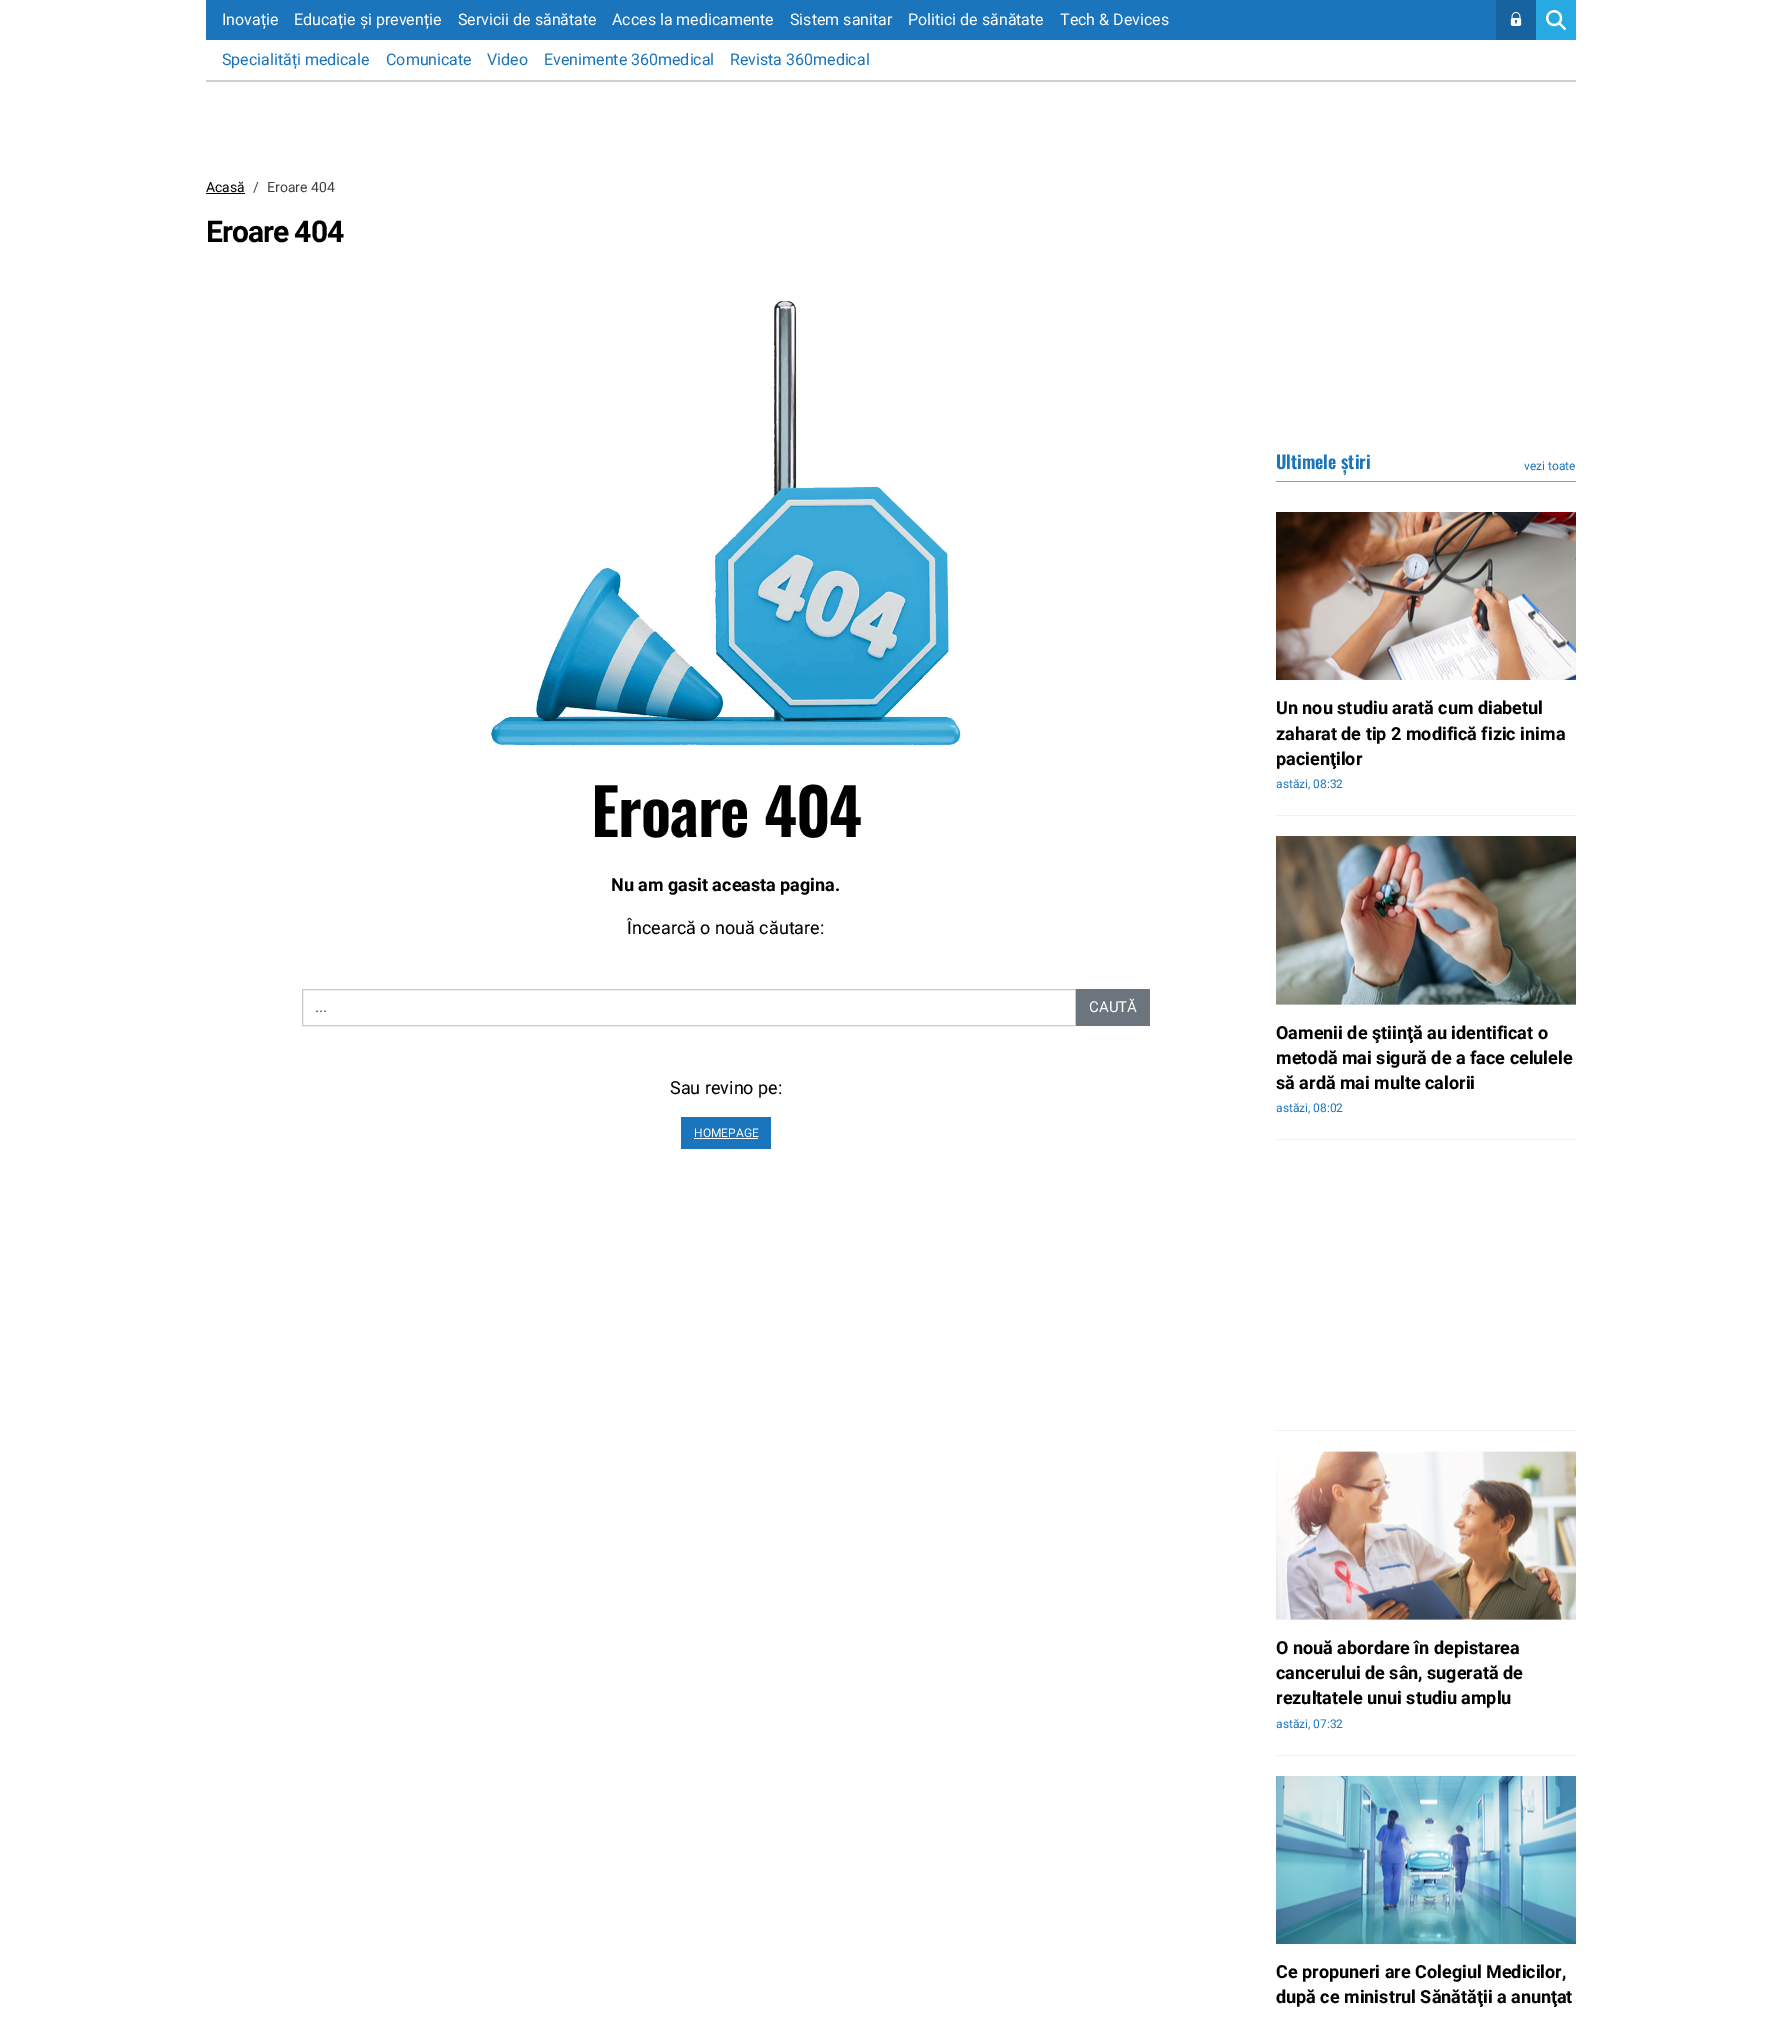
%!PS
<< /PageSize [1782 2025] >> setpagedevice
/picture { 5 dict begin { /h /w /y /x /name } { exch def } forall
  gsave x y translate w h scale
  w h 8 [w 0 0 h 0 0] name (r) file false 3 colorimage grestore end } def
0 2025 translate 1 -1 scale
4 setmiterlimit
1 setgray
0 0 1782 2025 rectfill
0.106 0.459 0.737 setrgbcolor
206 0 1290 40 rectfill
/Roboto-Regular [16 0 0 -16 0 0] selectfont
1 setgray
222 25 moveto (Inovație) show
294 25 moveto (Educație și prevenție) show
458 25 moveto (Servicii de sănătate) show
612 25 moveto (Acces la medicamente) show
790 25 moveto (Sistem sanitar) show
908 25 moveto (Politici de sănătate) show
1060 25 moveto (Tech & Devices) show
0.816 setgray
206 80 1370 2 rectfill
0.106 0.459 0.737 setrgbcolor
222 65 moveto (Specialități medicale) show
386 65 moveto (Comunicate) show
487 65 moveto (Video) show
544 65 moveto (Evenimente 360medical) show
730 65 moveto (Revista 360medical) show
0.09 0.388 0.627 setrgbcolor
1496 0 40 40 rectfill
(img1.rgb) 1510 12 12 14 picture
0.153 0.667 0.882 setrgbcolor
1536 0 40 40 rectfill
(img2.rgb) 1546 10 20 20 picture
/Roboto-Regular [14 0 0 -14 0 0] selectfont
0 setgray
206 192 moveto (Acasă) show
206 193 39 1 rectfill
0.251 setgray
253 192 moveto (/) show
267 192 moveto (Eroare 404) show
/Roboto-Bold [30 0 0 -30 0 0] selectfont
0 setgray
206 242 moveto -1 0 (Eroare 404) ashow
(img3.rgb) 490 299 472 447 picture
/Oswald-SemiBold [64 0 0 -64 0 0] selectfont
591 837 moveto -1 0 (Eroare 404) ashow
/Roboto-Bold [18 0 0 -18 0 0] selectfont
611 891 moveto (Nu am gasit aceasta pagina.) show
/Roboto-Regular [18 0 0 -18 0 0] selectfont
627 934 moveto (Încearcă o nouă căutare:) show
0.788 setgray
302.5 989.5 773 36 rectstroke
/Roboto-Italic [15 0 0 -15 0 0] selectfont
0.251 setgray
315 1012 moveto (...) show
0.424 0.459 0.49 setrgbcolor
1076 989 74 37 rectfill
/Roboto-Regular [15 0 0 -15 0 0] selectfont
1 setgray
1089 1012 moveto (CAUTĂ) show
/Roboto-Regular [18 0 0 -18 0 0] selectfont
0 setgray
670 1094 moveto (Sau revino pe:) show
0.106 0.459 0.737 setrgbcolor
681 1117 90 32 rectfill
/Roboto-Regular [12 0 0 -12 0 0] selectfont
1 setgray
694 1137 moveto (HOMEPAGE) show
694 1138 64 1 rectfill
0.6 setgray
1276 481 300 1 rectfill
/Oswald-SemiBold [18 0 0 -18 0 0] selectfont
0.106 0.459 0.737 setrgbcolor
1276 469 moveto (Ultimele știri) show
/Roboto-Regular [12 0 0 -12 0 0] selectfont
1524 470 moveto (vezi toate) show
0.945 setgray
1276 815 300 1 rectfill
(img4.rgb) 1276 512 300 168 picture
/Roboto-Bold [18 0 0 -18 0 0] selectfont
0 setgray
1276 714 moveto (Un nou studiu arată cum diabetul) show
1276 740 moveto (zaharat de tip 2 modifică fizic inima) show
1276 765 moveto (pacienţilor) show
/Roboto-Regular [12 0 0 -12 0 0] selectfont
0.106 0.459 0.737 setrgbcolor
1276 788 moveto (astăzi, 08:32) show
0.945 setgray
1276 1139 300 1 rectfill
(img5.rgb) 1276 836 300 169 picture
/Roboto-Bold [18 0 0 -18 0 0] selectfont
0 setgray
1276 1039 moveto (Oamenii de ştiinţă au identificat o) show
1276 1064 moveto (metodă mai sigură de a face celulele) show
1276 1089 moveto (să ardă mai multe calorii) show
/Roboto-Regular [12 0 0 -12 0 0] selectfont
0.106 0.459 0.737 setrgbcolor
1276 1112 moveto (astăzi, 08:02) show
0.945 setgray
1276 1430 300 1 rectfill
1276 1755 300 1 rectfill
(img6.rgb) 1276 1451 300 169 picture
/Roboto-Bold [18 0 0 -18 0 0] selectfont
0 setgray
1276 1654 moveto (O nouă abordare în depistarea) show
1276 1679 moveto (cancerului de sân, sugerată de) show
1276 1704 moveto (rezultatele unui studiu amplu) show
/Roboto-Regular [12 0 0 -12 0 0] selectfont
0.106 0.459 0.737 setrgbcolor
1276 1728 moveto (astăzi, 07:32) show
(img7.rgb) 1276 1776 300 168 picture
/Roboto-Bold [18 0 0 -18 0 0] selectfont
0 setgray
1276 1978 moveto (Ce propuneri are Colegiul Medicilor,) show
1276 2003 moveto (după ce ministrul Sănătăţii a anunţat) show
showpage
